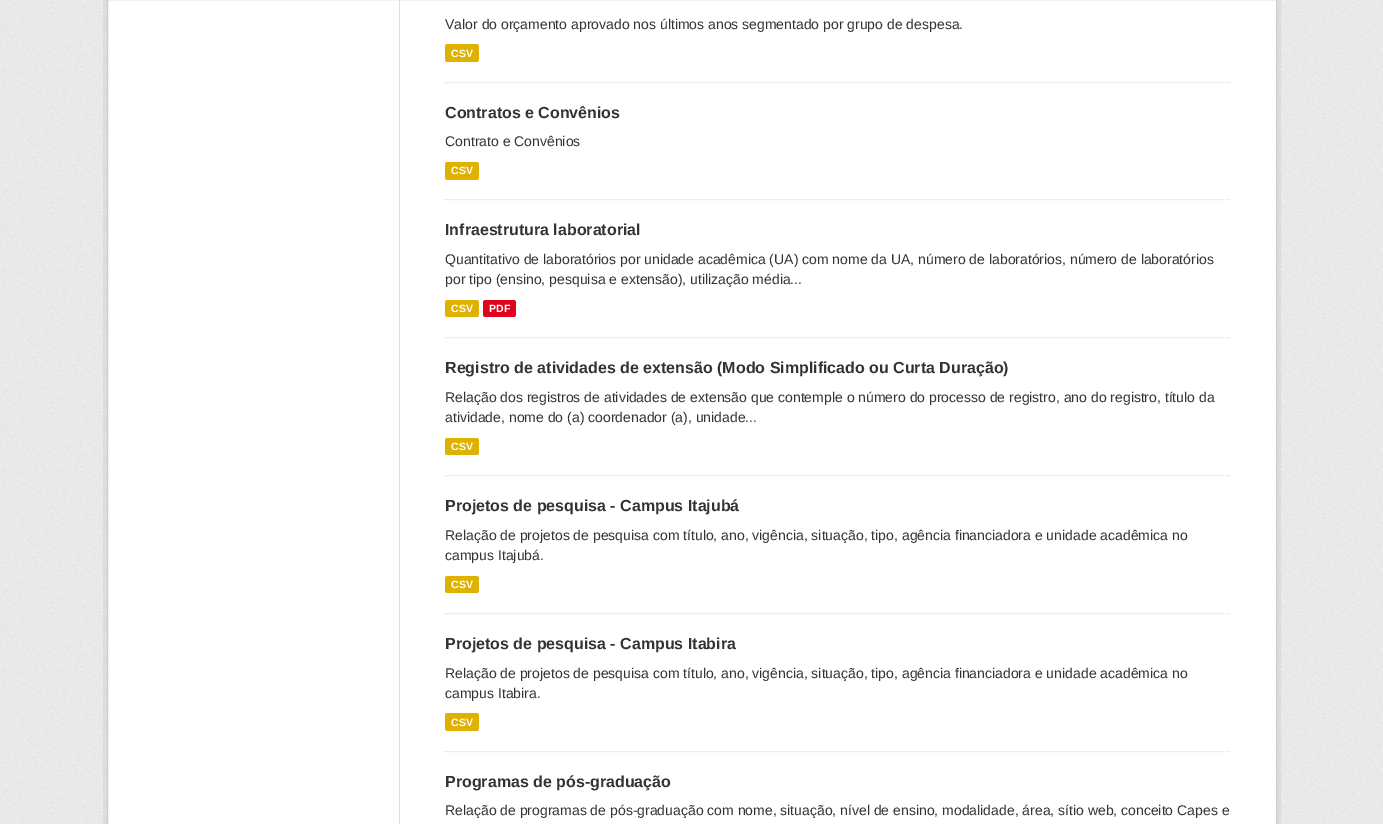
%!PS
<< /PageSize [1383 824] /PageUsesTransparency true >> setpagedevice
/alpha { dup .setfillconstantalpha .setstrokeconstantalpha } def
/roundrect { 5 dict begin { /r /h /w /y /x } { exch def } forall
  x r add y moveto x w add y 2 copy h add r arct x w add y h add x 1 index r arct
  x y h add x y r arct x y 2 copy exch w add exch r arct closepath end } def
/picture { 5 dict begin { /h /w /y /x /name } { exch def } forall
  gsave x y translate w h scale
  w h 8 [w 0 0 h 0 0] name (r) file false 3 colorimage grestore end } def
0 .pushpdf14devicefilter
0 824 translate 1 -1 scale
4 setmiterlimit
0.933 setgray
0 0 1383 824 rectfill
(img1.rgb) 0 0 1383 824 picture
0.05 alpha
0 setgray
4 setlinewidth
105 -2 1174 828 rectstroke
1 alpha
1 setgray
newpath 107.5 -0.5 moveto 1276.5 -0.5 lineto 1276.5 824.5 lineto 107.5 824.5 lineto closepath gsave fill grestore
0.8 setgray
1 setlinewidth
stroke
0.867 setgray
399 0 1 824 rectfill
[1 1] 0 setdash
newpath 445 82.5 moveto 1231 82.5 lineto stroke
/LiberationSans-Regular [14 0 0 -14 0 0] selectfont
0.2 setgray
445 29 moveto (Valor do orçamento aprovado nos últimos anos segmentado por grupo de despesa.) show
0.875 0.694 0 setrgbcolor
445 44 34 18 2.5 roundrect fill
/LiberationSans-Bold [10.5 0 0 -10.5 0 0] selectfont
1 setgray
451 57 moveto (CSV) show
0.867 setgray
newpath 445 199.5 moveto 1231 199.5 lineto stroke
/LiberationSans-Bold [16 0 0 -16 0 0] selectfont
0.2 setgray
445 118 moveto (Contratos e Convênios) show
/LiberationSans-Regular [14 0 0 -14 0 0] selectfont
445 146 moveto (Contrato e Convênios) show
0.875 0.694 0 setrgbcolor
445 162 34 18 2.5 roundrect fill
/LiberationSans-Bold [10.5 0 0 -10.5 0 0] selectfont
1 setgray
451 174 moveto (CSV) show
0.867 setgray
newpath 445 337.5 moveto 1231 337.5 lineto stroke
/LiberationSans-Bold [16 0 0 -16 0 0] selectfont
0.2 setgray
445 235 moveto (Infraestrutura laboratorial) show
/LiberationSans-Regular [14 0 0 -14 0 0] selectfont
445 264 moveto (Quantitativo de laboratórios por unidade acadêmica \(UA\) com nome da UA, número de laboratórios, número de laboratórios) show
445 284 moveto (por tipo \(ensino, pesquisa e extensão\), utilização média...) show
0.875 0.694 0 setrgbcolor
445 300 34 17 2.5 roundrect fill
/LiberationSans-Bold [10.5 0 0 -10.5 0 0] selectfont
1 setgray
451 312 moveto (CSV) show
0.878 0.02 0.118 setrgbcolor
483 300 33 17 2.5 roundrect fill
1 setgray
489 312 moveto (PDF) show
0.867 setgray
newpath 445 475.5 moveto 1231 475.5 lineto stroke
/LiberationSans-Bold [16 0 0 -16 0 0] selectfont
0.2 setgray
445 373 moveto (Registro de atividades de extensão \(Modo Simplificado ou Curta Duração\)) show
/LiberationSans-Regular [14 0 0 -14 0 0] selectfont
445 402 moveto (Relação dos registros de atividades de extensão que contemple o número do processo de registro, ano do registro, título da) show
445 422 moveto (atividade, nome do \(a\) coordenador \(a\), unidade...) show
0.875 0.694 0 setrgbcolor
445 438 34 17 2.5 roundrect fill
/LiberationSans-Bold [10.5 0 0 -10.5 0 0] selectfont
1 setgray
451 450 moveto (CSV) show
0.867 setgray
newpath 445 613.5 moveto 1231 613.5 lineto stroke
/LiberationSans-Bold [16 0 0 -16 0 0] selectfont
0.2 setgray
445 511 moveto (Projetos de pesquisa - Campus Itajubá) show
/LiberationSans-Regular [14 0 0 -14 0 0] selectfont
445 540 moveto (Relação de projetos de pesquisa com título, ano, vigência, situação, tipo, agência financiadora e unidade acadêmica no) show
445 560 moveto (campus Itajubá.) show
0.875 0.694 0 setrgbcolor
445 576 34 17 2.5 roundrect fill
/LiberationSans-Bold [10.5 0 0 -10.5 0 0] selectfont
1 setgray
451 588 moveto (CSV) show
0.867 setgray
newpath 445 751.5 moveto 1231 751.5 lineto stroke
/LiberationSans-Bold [16 0 0 -16 0 0] selectfont
0.2 setgray
445 649 moveto (Projetos de pesquisa - Campus Itabira) show
/LiberationSans-Regular [14 0 0 -14 0 0] selectfont
445 678 moveto (Relação de projetos de pesquisa com título, ano, vigência, situação, tipo, agência financiadora e unidade acadêmica no) show
445 698 moveto (campus Itabira.) show
0.875 0.694 0 setrgbcolor
445 713 34 18 2.5 roundrect fill
/LiberationSans-Bold [10.5 0 0 -10.5 0 0] selectfont
1 setgray
451 726 moveto (CSV) show
/LiberationSans-Bold [16 0 0 -16 0 0] selectfont
0.2 setgray
445 787 moveto (Programas de pós-graduação) show
/LiberationSans-Regular [14 0 0 -14 0 0] selectfont
445 815 moveto (Relação de programas de pós-graduação com nome, situação, nível de ensino, modalidade, área, sítio web, conceito Capes e) show
.poppdf14devicefilter showpage
